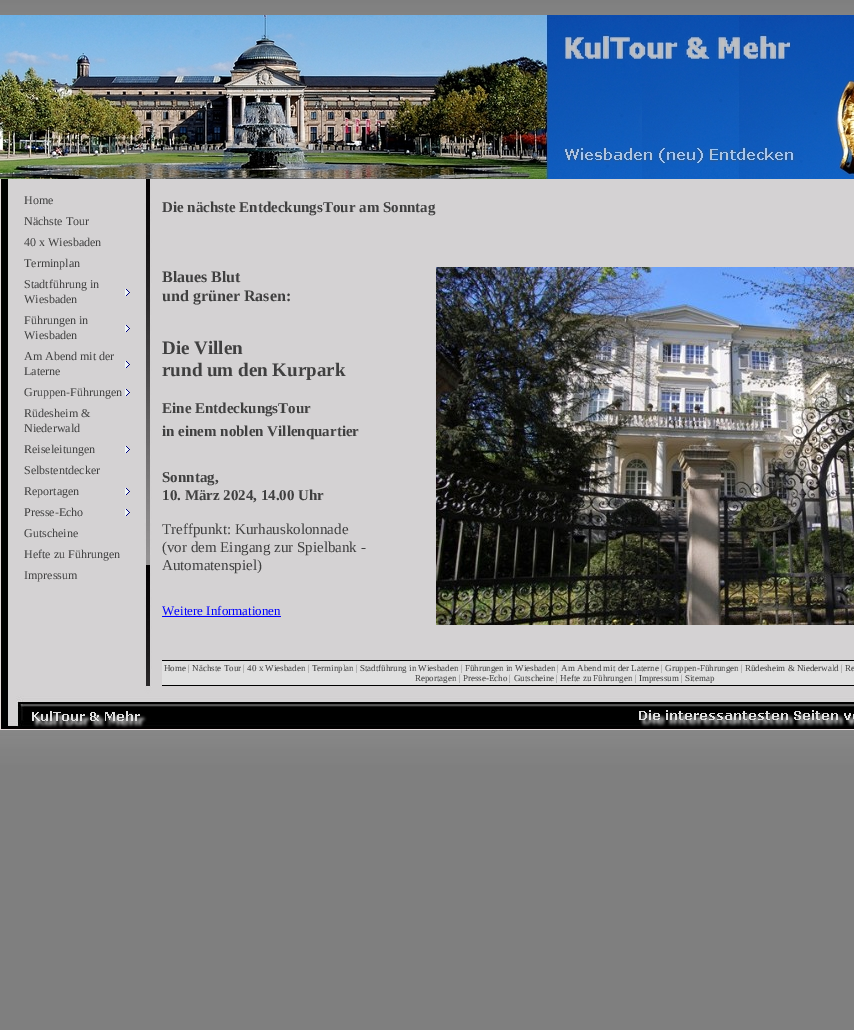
%!PS
<< /PageSize [854 1030] >> setpagedevice
/picture { 5 dict begin { /h /w /y /x /name } { exch def } forall
  gsave x y translate w h scale
  w h 8 [w 0 0 h 0 0] name (r) file false 3 colorimage grestore end } def
0 1030 translate 1 -1 scale
4 setmiterlimit
1 setgray
0 0 854 1030 rectfill
(img1.rgb) 0 0 854 1030 picture
(img2.rgb) 0 15 854 164 picture
(img3.rgb) 0 179 854 551 picture
/LiberationSerif-Regular [12 0 0 -12 0 0] selectfont
0.251 setgray
24 204 moveto (Home) show
24 225 moveto (Nächste Tour) show
24 246 moveto (40 x Wiesbaden) show
24 267 moveto (Terminplan) show
(img4.rgb) 125 289 5 7 picture
24 288 moveto (Stadtführung in) show
24 303 moveto (Wiesbaden) show
(img4.rgb) 125 325 5 7 picture
24 324 moveto (Führungen in) show
24 339 moveto (Wiesbaden) show
(img4.rgb) 125 361 5 7 picture
24 360 moveto (Am Abend mit der) show
24 375 moveto (Laterne) show
(img4.rgb) 125 389 5 7 picture
24 396 moveto (Gruppen-Führungen) show
24 417 moveto (Rüdesheim &) show
24 432 moveto (Niederwald) show
(img4.rgb) 125 446 5 7 picture
24 453 moveto (Reiseleitungen) show
24 474 moveto (Selbstentdecker) show
(img4.rgb) 125 488 5 7 picture
24 495 moveto (Reportagen) show
(img4.rgb) 125 509 5 7 picture
24 516 moveto (Presse-Echo) show
24 537 moveto (Gutscheine) show
24 558 moveto (Hefte zu Führungen) show
24 579 moveto (Impressum) show
/LiberationSerif-Bold [15 0 0 -15 0 0] selectfont
162 212 moveto (Die nächste EntdeckungsTour am Sonntag) show
/LiberationSerif-Bold [16 0 0 -16 0 0] selectfont
162 282 moveto (Blaues Blut) show
162 301 moveto (und grüner Rasen:) show
/LiberationSerif-Bold [19 0 0 -19 0 0] selectfont
162 354 moveto (Die Villen) show
162 376 moveto (rund um den Kurpark) show
/LiberationSerif-Bold [15 0 0 -15 0 0] selectfont
162 413 moveto (Eine EntdeckungsTour) show
162 436 moveto (in einem noblen Villenquartier) show
162 482 moveto (Sonntag,) show
162 500 moveto (10. März 2024, 14.00 Uhr) show
/LiberationSerif-Regular [15 0 0 -15 0 0] selectfont
162 534 moveto (Treffpunkt: Kurhauskolonnade) show
162 552 moveto (\(vor dem Eingang zur Spielbank -) show
162 570 moveto (Automatenspiel\)) show
/LiberationSerif-Regular [13 0 0 -13 0 0] selectfont
0 0 1 setrgbcolor
162 615 moveto (Weitere Informationen) show
162 616 119 1 rectfill
(img5.rgb) 436 267 418 358 picture
0.878 setgray
162 661 692 24 rectfill
0 setgray
162 660 692 1 rectfill
162 685 692 1 rectfill
/LiberationSerif-Regular [9 0 0 -9 0 0] selectfont
0.251 setgray
164 671 moveto (Home | Nächste Tour | 40 x Wiesbaden | Terminplan | Stadtführung in Wiesbaden | Führungen in Wiesbaden | Am Abend mit der Laterne | Gruppen-Führungen | Rüdesheim & Niederwald | Re) show
415 681 moveto (Reportagen | Presse-Echo | Gutscheine | Hefte zu Führungen | Impressum | Sitemap) show
(img6.rgb) 1 686 853 44 picture
showpage
